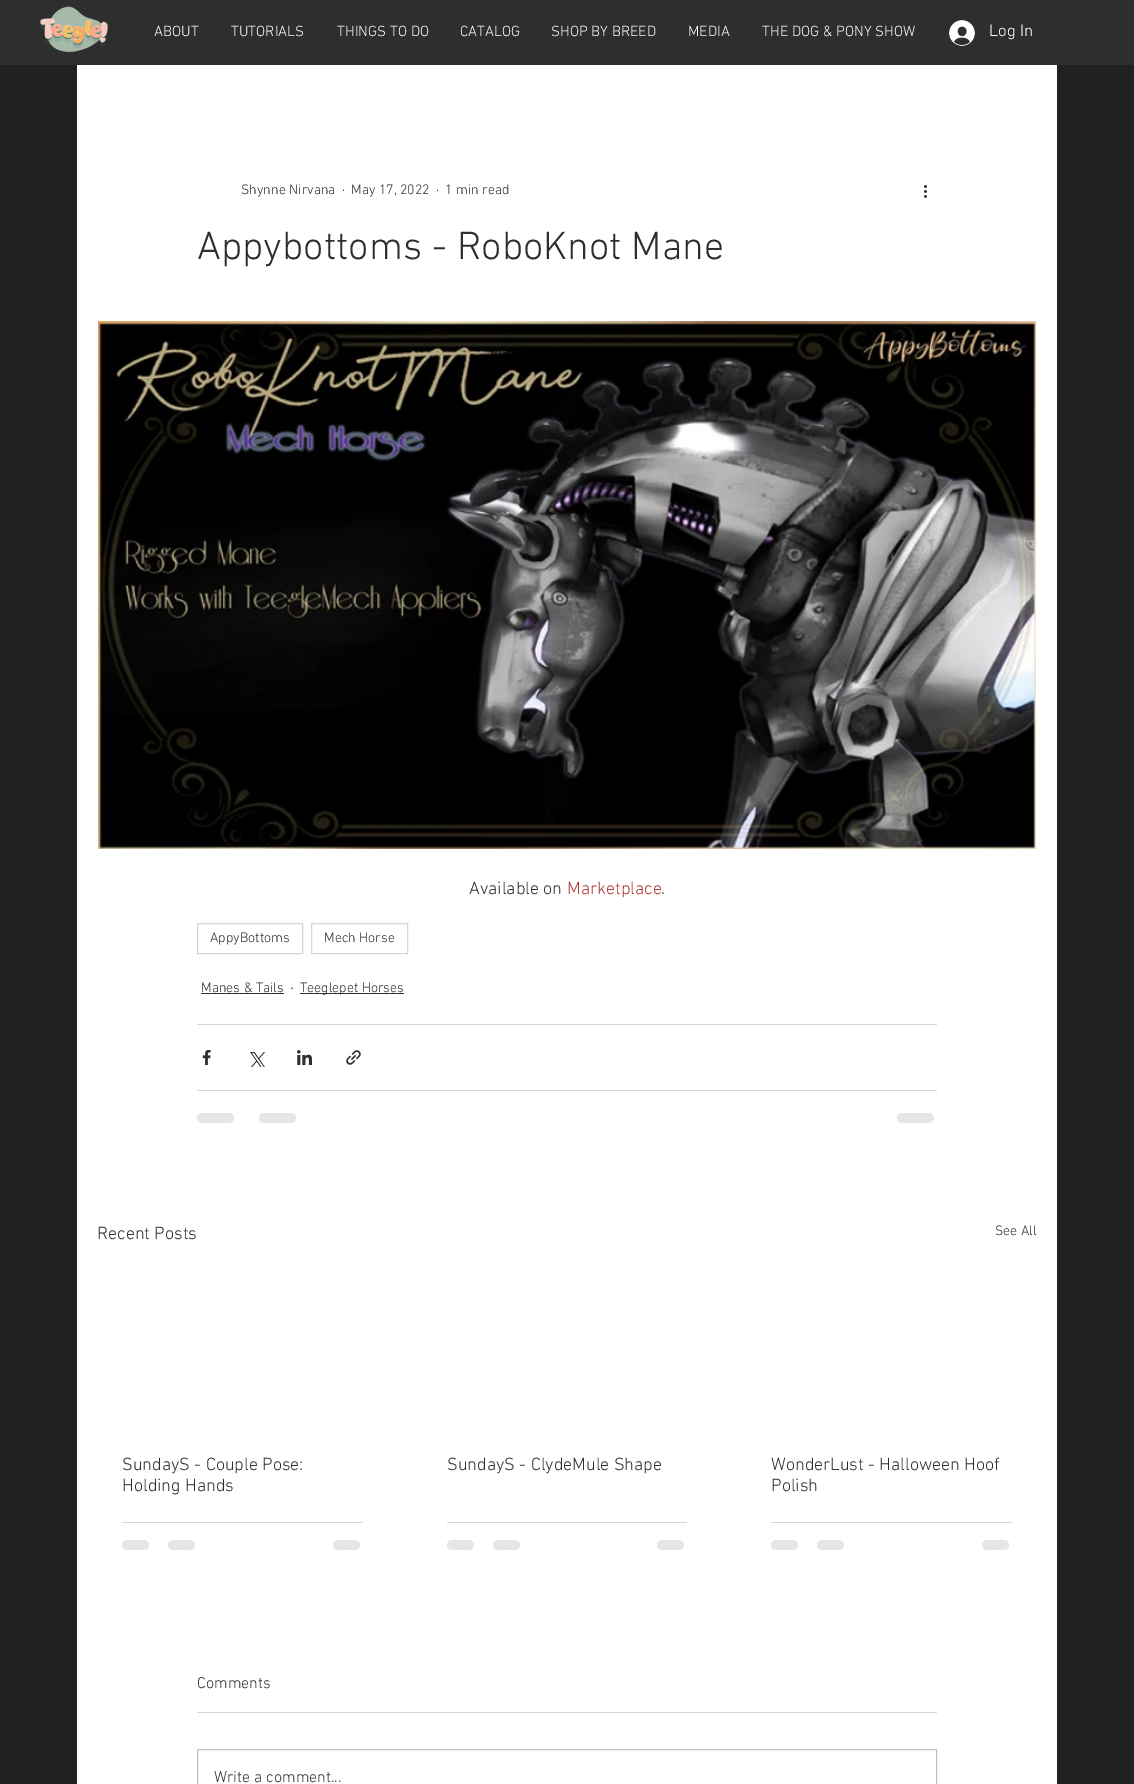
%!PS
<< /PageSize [1134 1784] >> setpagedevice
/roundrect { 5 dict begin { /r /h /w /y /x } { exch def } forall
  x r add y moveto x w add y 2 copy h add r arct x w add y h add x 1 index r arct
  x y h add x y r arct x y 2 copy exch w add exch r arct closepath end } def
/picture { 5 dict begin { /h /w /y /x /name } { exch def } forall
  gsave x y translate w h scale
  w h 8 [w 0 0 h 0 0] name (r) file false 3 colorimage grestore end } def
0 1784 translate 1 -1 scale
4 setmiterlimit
0.129 setgray
0 0 1134 1784 rectfill
0.184 0.18 0.18 setrgbcolor
0 0 1134 65 rectfill
(img1.rgb) 40 6 68 47 picture
/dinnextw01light-Light [15 0 0 -15 0 0] selectfont
1 setgray
154 36 moveto (ABOUT) show
231 36 moveto (TUTORIALS) show
337 36 moveto (THINGS TO DO) show
460 36 moveto (CATALOG) show
551 36 moveto (SHOP BY BREED) show
688 36 moveto (MEDIA) show
762 36 moveto (THE DOG & PONY SHOW) show
(img2.rgb) 949 20 26 26 picture
/dinnextw01light-Light [17 0 0 -17 0 0] selectfont
989 36 moveto (Log In) show
77 65 980 1719 rectfill
/dinnextw01light-Light [14 0 0 -14 0 0] selectfont
0.184 0.18 0.18 setrgbcolor
241 194 moveto (Shynne Nirvana) show
342 194 moveto (·) show
351 194 moveto (May 17, 2022) show
436 194 moveto (·) show
445 194 moveto (1 min read) show
(img3.rgb) 924 185 3 13 picture
/dinnextw01light-Light [40 0 0 -40 0 0] selectfont
197 259 moveto (Appybottoms - RoboKnot Mane) show
(img4.rgb) 98 321 938 528 picture
/dinnextw01light-Light [18 0 0 -18 0 0] selectfont
469 894 moveto (Available on) show
0.69 0.216 0.216 setrgbcolor
567 894 moveto (Marketplace) show
0.184 0.18 0.18 setrgbcolor
661 894 moveto (.) show
0.835 setgray
197.5 923.5 105 30 rectstroke
/dinnextw01light-Light [14 0 0 -14 0 0] selectfont
0.184 0.18 0.18 setrgbcolor
210 942 moveto (AppyBottoms) show
0.835 setgray
311.5 923.5 96 30 rectstroke
0.184 0.18 0.18 setrgbcolor
324 942 moveto (Mech Horse) show
201 992 moveto (Manes & Tails) show
201 993 83 1 rectfill
/dinnextw01light-Light [18 0 0 -18 0 0] selectfont
290 993 moveto (·) show
300 993 104 1 rectfill
/dinnextw01light-Light [14 0 0 -14 0 0] selectfont
300 992 moveto (Teeglepet Horses) show
0.835 setgray
197 1024 740 1 rectfill
(img5.rgb) 202 1050 9 15 picture
(img6.rgb) 250 1052 15 15 picture
(img7.rgb) 297 1050 15 15 picture
(img8.rgb) 346 1050 15 15 picture
197 1090 740 1 rectfill
0.902 setgray
197 1113 37 10 5 roundrect fill
259 1113 37 10 5 roundrect fill
897 1113 37 10 5 roundrect fill
/dinnextw01light-Light [18 0 0 -18 0 0] selectfont
0.184 0.18 0.18 setrgbcolor
97 1239 moveto (Recent Posts) show
/dinnextw01light-Light [14 0 0 -14 0 0] selectfont
995 1235 moveto (See All) show
/dinnextw01light-Light [18 0 0 -18 0 0] selectfont
122 1470 moveto (SundayS - Couple Pose:) show
122 1491 moveto (Holding Hands) show
0.835 setgray
122 1522 241 1 rectfill
0.902 setgray
122 1540 27 10 5 roundrect fill
168 1540 27 10 5 roundrect fill
333 1540 27 10 5 roundrect fill
0.184 0.18 0.18 setrgbcolor
447 1470 moveto (SundayS - ClydeMule Shape) show
0.835 setgray
447 1522 240 1 rectfill
0.902 setgray
447 1540 27 10 5 roundrect fill
493 1540 27 10 5 roundrect fill
657 1540 27 10 5 roundrect fill
0.184 0.18 0.18 setrgbcolor
771 1470 moveto (WonderLust - Halloween Hoof) show
771 1491 moveto (Polish) show
0.835 setgray
771 1522 241 1 rectfill
0.902 setgray
771 1540 27 10 5 roundrect fill
817 1540 27 10 5 roundrect fill
982 1540 27 10 5 roundrect fill
/dinnextw01light-Light [16 0 0 -16 0 0] selectfont
0.184 0.18 0.18 setrgbcolor
197 1688 moveto (Comments) show
0.835 setgray
197 1712 740 1 rectfill
0.757 0.753 0.753 setrgbcolor
197.5 1749.5 739 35 rectstroke
0.184 0.18 0.18 setrgbcolor
214 1782 moveto (Write a comment...) show
showpage
